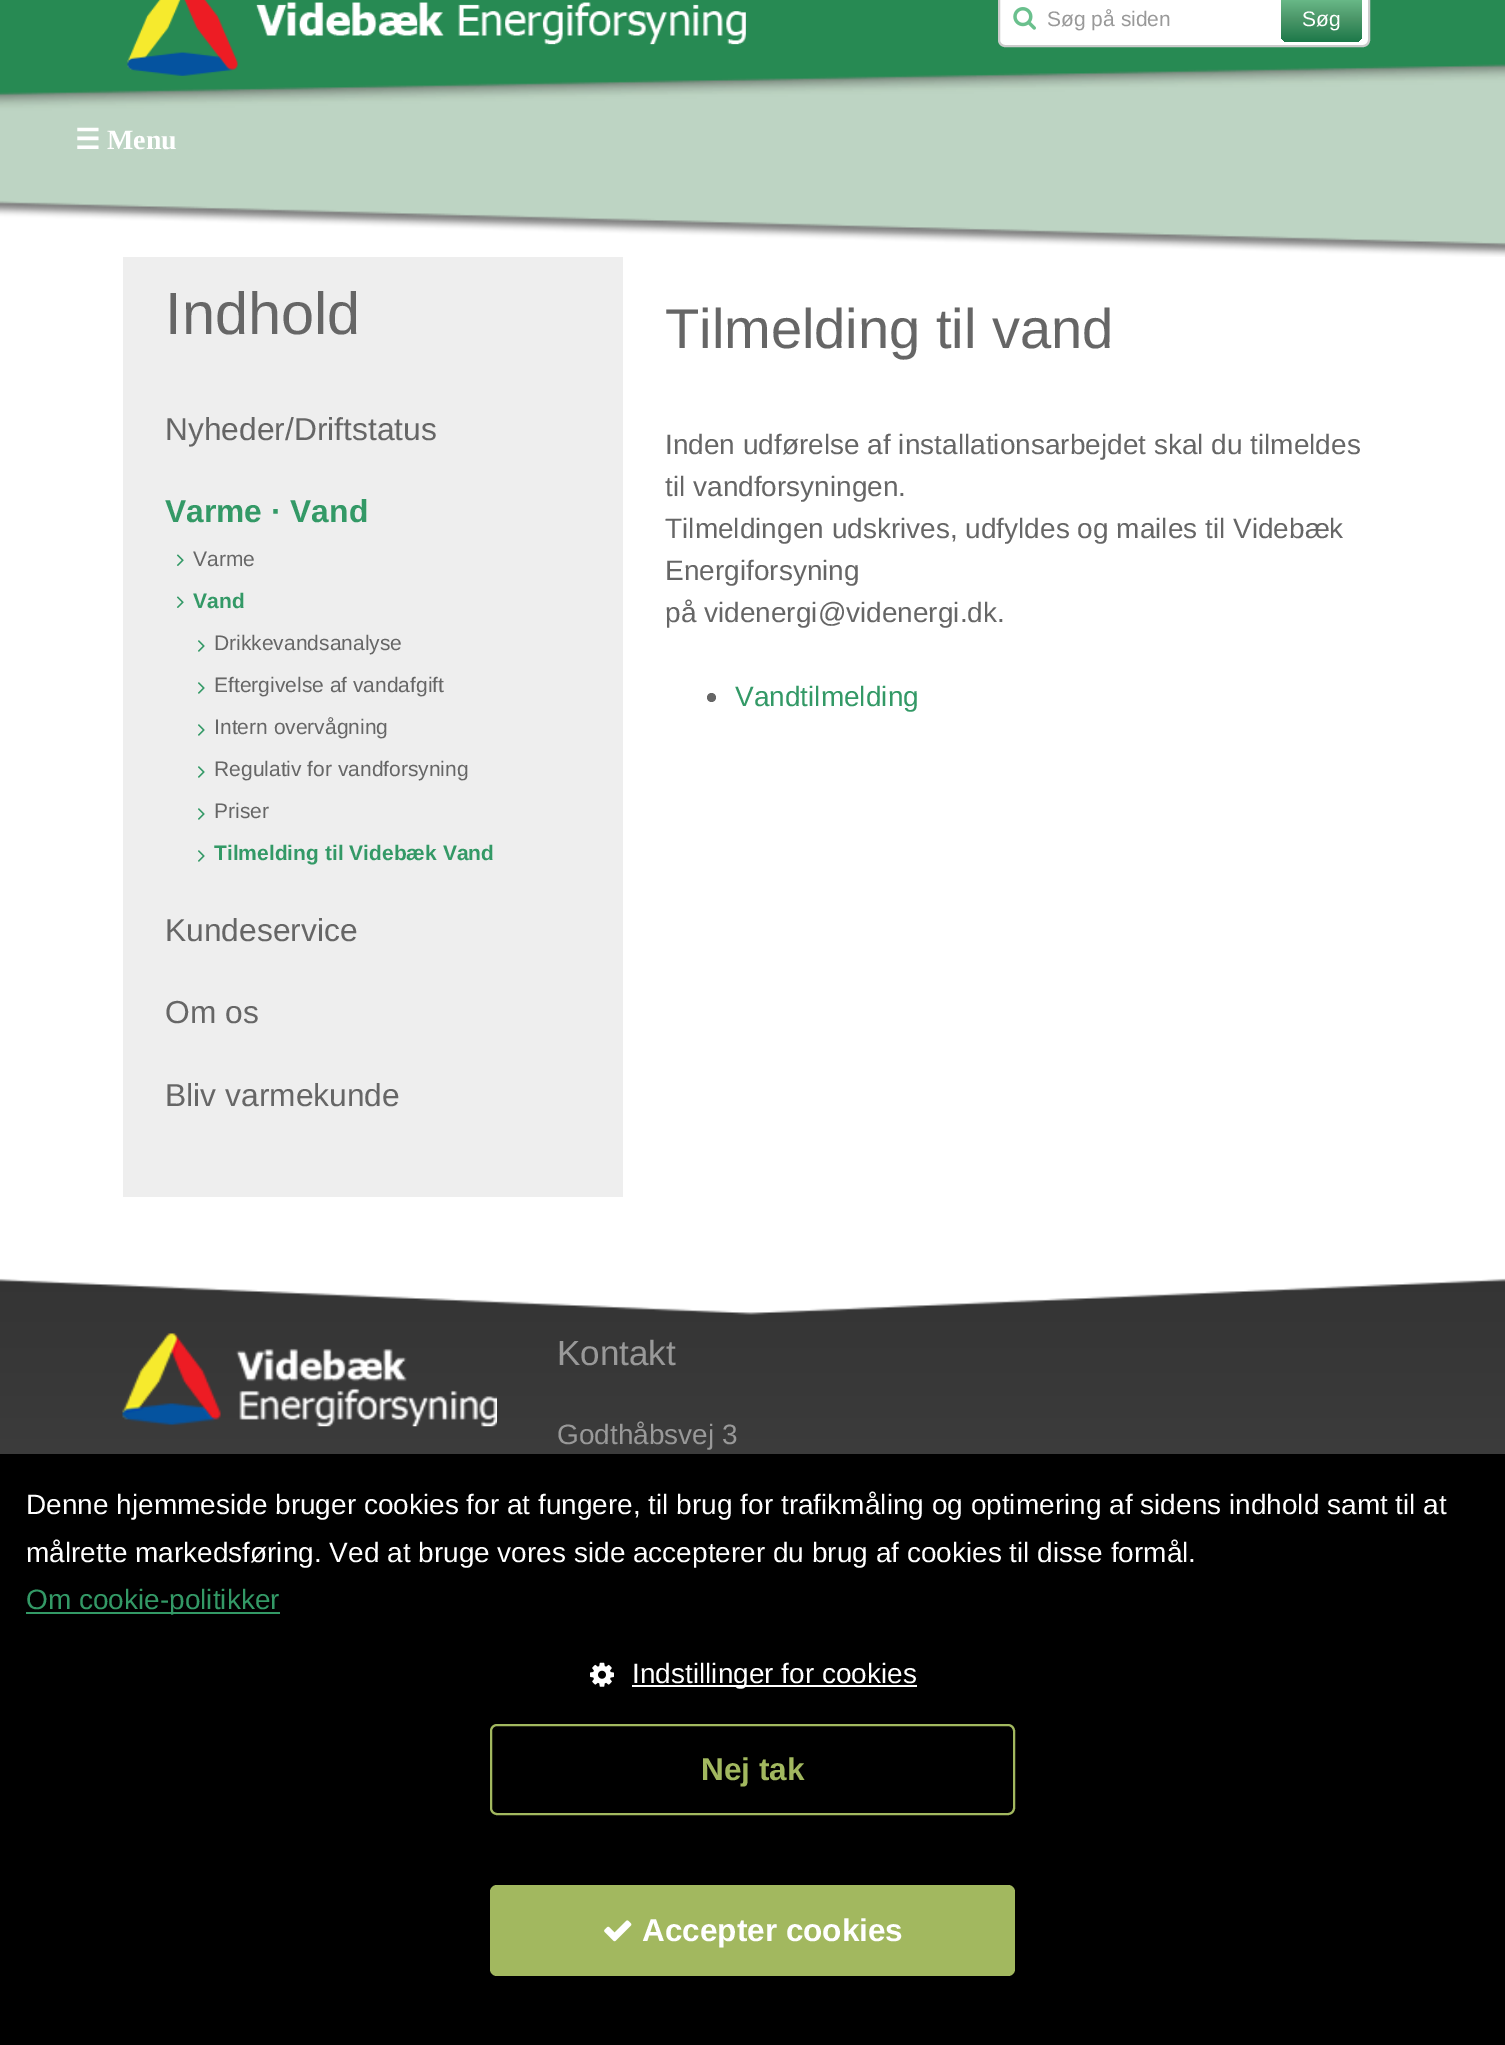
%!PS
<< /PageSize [1505 2045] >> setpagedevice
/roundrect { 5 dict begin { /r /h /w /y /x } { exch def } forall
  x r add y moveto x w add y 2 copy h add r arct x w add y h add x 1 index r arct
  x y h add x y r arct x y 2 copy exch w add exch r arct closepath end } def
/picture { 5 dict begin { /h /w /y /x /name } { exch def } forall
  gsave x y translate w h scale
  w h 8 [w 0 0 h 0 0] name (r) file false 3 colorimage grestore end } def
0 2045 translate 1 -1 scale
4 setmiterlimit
1 setgray
0 0 1505 2045 rectfill
(img1.rgb) 0 0 1505 257 picture
(img2.rgb) 127 0 619 76 picture
999 -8 370 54 6 roundrect gsave fill grestore
0.8 setgray
2 setlinewidth
stroke
(img3.rgb) 1013 7 23 23 picture
/LiberationSans-Regular [21 0 0 -21 0 0] selectfont
0.6 setgray
1047 26 moveto (Søg på siden) show
gsave 1281 -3 81 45 7 roundrect clip newpath
<< /ShadingType 2 /ColorSpace /DeviceRGB /Coords [1321 -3.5 1321 42] /Extend [true true] /Function << /FunctionType 3 /Domain [0 1] /Functions [<< /FunctionType 2 /Domain [0 1] /C0 [0.427 0.745 0.553] /C1 [0.294 0.588 0.408] /N 1 >> << /FunctionType 2 /Domain [0 1] /C0 [0.294 0.588 0.408] /C1 [0.11 0.471 0.286] /N 1 >>] /Bounds [0.5] /Encode [0 1 0 1] >> >> shfill grestore
1 setgray
1302 26 moveto (Søg) show
/DejaVuSans-Bold [28 0 0 -28 0 0] selectfont
75 149 moveto (☰) show
/LiberationSerif-Bold [28 0 0 -28 0 0] selectfont
107 149 moveto (Menu) show
0.933 setgray
123 257 500 940 rectfill
/LiberationSans-Regular [59.5 0 0 -59.5 0 0] selectfont
0.4 setgray
165 334 moveto (Indhold) show
/LiberationSans-Regular [31.75 0 0 -31.75 0 0] selectfont
165 440 moveto (Nyheder/Driftstatus) show
/LiberationSans-Bold [31.75 0 0 -31.75 0 0] selectfont
0.2 0.6 0.4 setrgbcolor
165 522 moveto (Varme · Vand) show
(img4.rgb) 176 554 8 12 picture
/LiberationSans-Regular [21 0 0 -21 0 0] selectfont
0.4 setgray
193 566 moveto (Varme) show
(img4.rgb) 176 596 8 12 picture
/LiberationSans-Bold [21 0 0 -21 0 0] selectfont
0.2 0.6 0.4 setrgbcolor
193 608 moveto (Vand) show
(img5.rgb) 198 640 7 12 picture
/LiberationSans-Regular [21 0 0 -21 0 0] selectfont
0.4 setgray
214 650 moveto (Drikkevandsanalyse) show
(img5.rgb) 198 682 7 12 picture
214 692 moveto (Eftergivelse af vandafgift) show
(img5.rgb) 198 724 7 12 picture
214 734 moveto (Intern overvågning) show
(img5.rgb) 198 766 7 12 picture
214 776 moveto (Regulativ for vandforsyning) show
(img5.rgb) 198 808 7 12 picture
214 818 moveto (Priser) show
(img5.rgb) 198 850 7 12 picture
/LiberationSans-Bold [21 0 0 -21 0 0] selectfont
0.2 0.6 0.4 setrgbcolor
214 860 moveto (Tilmelding til Videbæk Vand) show
/LiberationSans-Regular [31.75 0 0 -31.75 0 0] selectfont
0.4 setgray
165 941 moveto (Kundeservice) show
165 1023 moveto (Om os) show
165 1106 moveto (Bliv varmekunde) show
/LiberationSans-Regular [56 0 0 -56 0 0] selectfont
665 348 moveto (Tilmelding til vand) show
/LiberationSans-Regular [28 0 0 -28 0 0] selectfont
665 454 moveto (Inden udførelse af installationsarbejdet skal du tilmeldes) show
665 496 moveto (til vandforsyningen.) show
665 538 moveto (Tilmeldingen udskrives, udfyldes og mailes til Videbæk) show
665 580 moveto (Energiforsyning) show
665 622 moveto (på videnergi@videnergi.dk.) show
newpath 711.5 697.5 4.5 0 360 arc closepath fill
0.2 0.6 0.4 setrgbcolor
735 706 moveto (Vandtilmelding) show
(img6.rgb) 0 1278 1505 176 picture
(img7.rgb) 122 1333 375 94 picture
/LiberationSans-Regular [35 0 0 -35 0 0] selectfont
0.6 setgray
557 1365 moveto (Kontakt) show
/LiberationSans-Regular [28 0 0 -28 0 0] selectfont
557 1444 moveto (Godthåbsvej 3) show
0 setgray
0 1454 1505 591 rectfill
1 setgray
26 1514 moveto (Denne hjemmeside bruger cookies for at fungere, til brug for trafikmåling og optimering af sidens indhold samt til at) show
26 1562 moveto (målrette markedsføring. Ved at bruge vores side accepterer du brug af cookies til disse formål.) show
0.2 0.6 0.4 setrgbcolor
26 1612 254 2 rectfill
26 1609 moveto (Om cookie-politikker) show
(img8.rgb) 590 1662 24 25 picture
1 setgray
632 1685 285 2 rectfill
632 1683 moveto (Indstillinger for cookies) show
0.635 0.722 0.373 setrgbcolor
491 1725 523 89 6 roundrect stroke
/LiberationSans-Bold [31.5 0 0 -31.5 0 0] selectfont
701 1780 moveto (Nej tak) show
490 1885 525 91 7 roundrect fill
(img9.rgb) 604 1920 28 22 picture
1 setgray
642 1941 moveto (Accepter cookies) show
showpage
